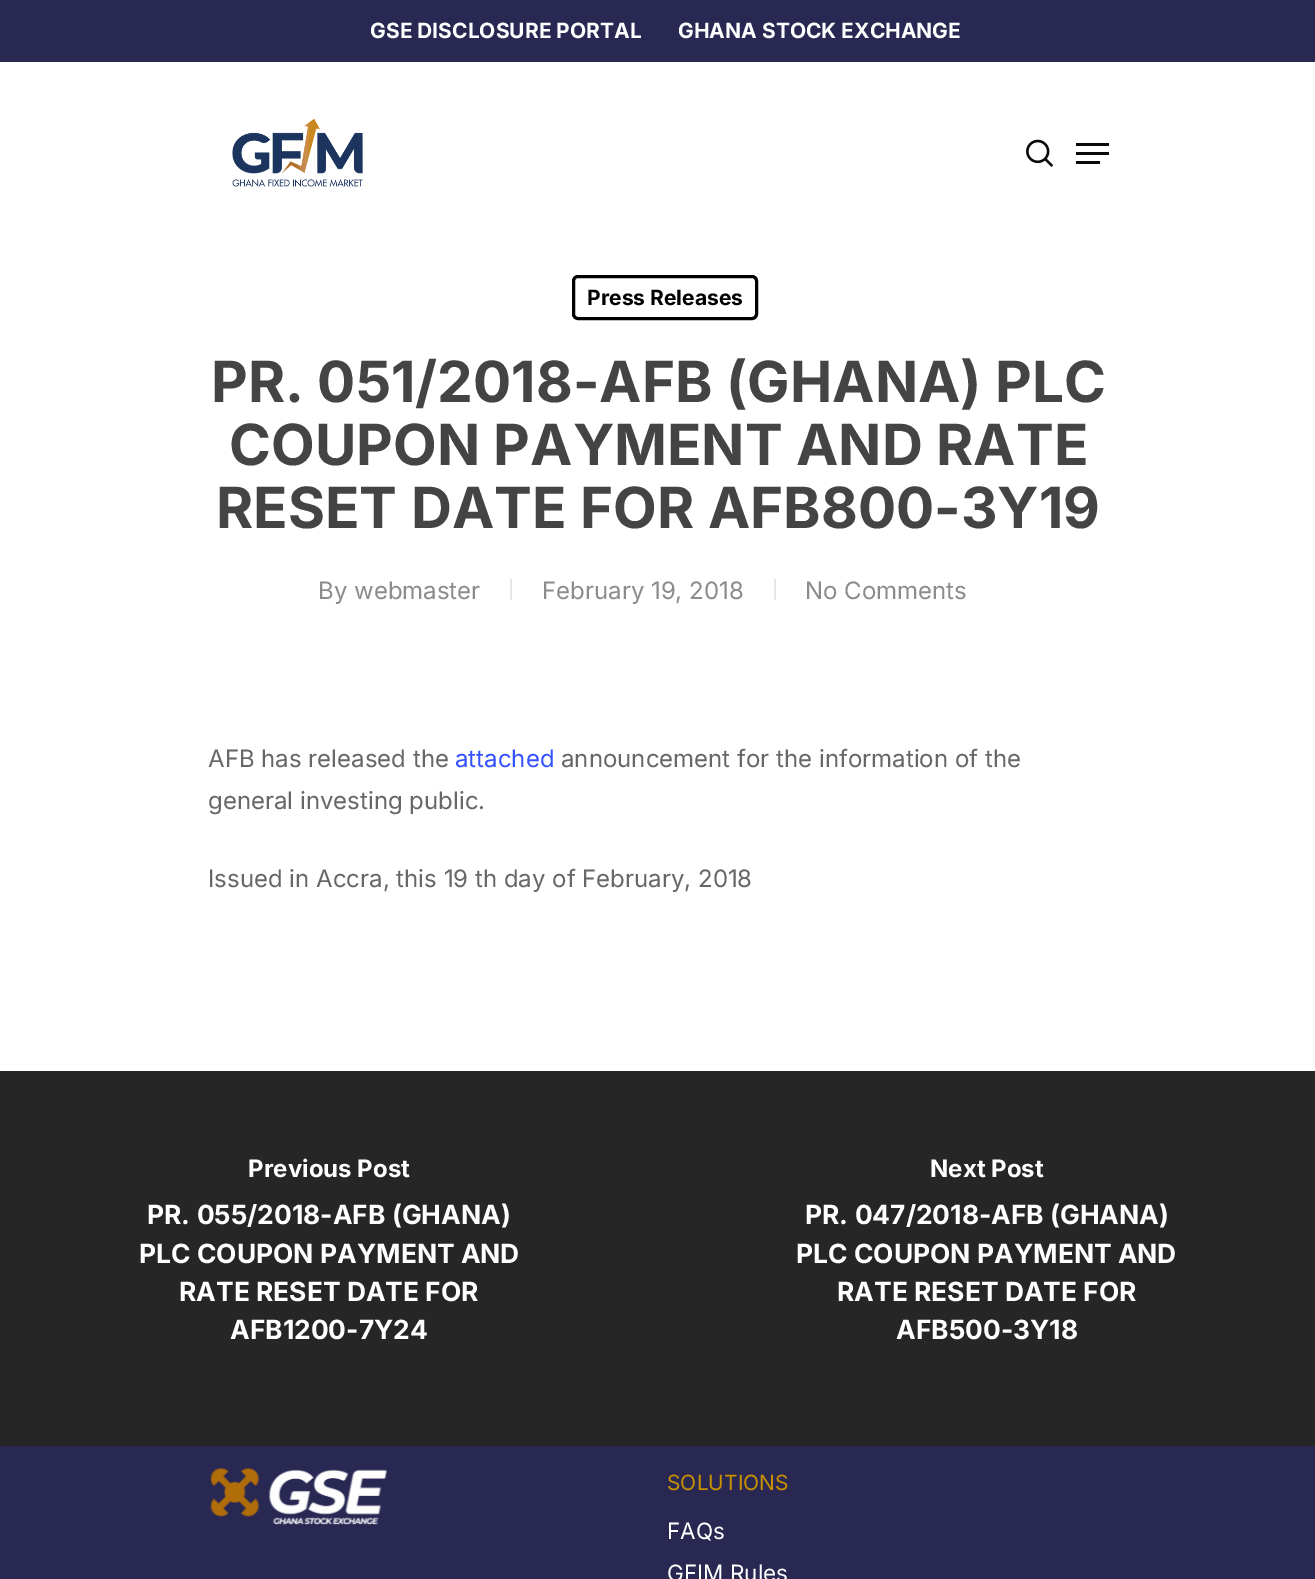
%!PS
<< /PageSize [1315 1579] >> setpagedevice
/roundrect { 5 dict begin { /r /h /w /y /x } { exch def } forall
  x r add y moveto x w add y 2 copy h add r arct x w add y h add x 1 index r arct
  x y h add x y r arct x y 2 copy exch w add exch r arct closepath end } def
/picture { 5 dict begin { /h /w /y /x /name } { exch def } forall
  gsave x y translate w h scale
  w h 8 [w 0 0 h 0 0] name (r) file false 3 colorimage grestore end } def
0 1579 translate 1 -1 scale
4 setmiterlimit
1 setgray
0 0 1315 1579 rectfill
0.157 0.157 0.325 setrgbcolor
0 0 1315 62 rectfill
/Inter-Bold [21 0 0 -21 0 0] selectfont
1 setgray
370 38 moveto (GSE DISCLOSURE PORTAL) show
678 38 moveto (GHANA STOCK EXCHANGE) show
(img1.rgb) 232 118 131 69 picture
(img2.rgb) 1026 139 27 28 picture
0.039 setgray
1076 143 33 3 rectfill
1076 161 24 3 rectfill
1076 152 33 3 rectfill
0 setgray
3 setlinewidth
573.5 276.5 183 42 4.5 roundrect stroke
587 305 moveto (Press Releases) show
/Inter-Bold [56.75 0 0 -56.75 0 0] selectfont
0.267 setgray
211 402 moveto (PR. 051/2018-AFB \(GHANA\) PLC) show
229 465 moveto (COUPON PAYMENT AND RATE) show
216 528 moveto (RESET DATE FOR AFB800-3Y19) show
/Inter-Regular [24 0 0 -24 0 0] selectfont
0.549 setgray
318 599 moveto (By) show
354 599 moveto (webmaster) show
0.902 setgray
510 579 2 21 rectfill
0.549 setgray
542 599 moveto (February 19, 2018) show
0.902 setgray
774 579 2 21 rectfill
0.549 setgray
805 599 moveto (No Comments) show
0.404 setgray
208 767 moveto (AFB has released the) show
0.204 0.322 1 setrgbcolor
455 767 moveto (attached) show
0.404 setgray
561 767 moveto (announcement for the information of the) show
208 809 moveto (general investing public.) show
208 887 moveto (Issued in Accra, this 19 th day of February, 2018) show
0.149 setgray
0 1071 1315 375 rectfill
/Inter-Bold [24 0 0 -24 0 0] selectfont
1 setgray
248 1177 moveto (Previous Post) show
/Inter-Bold [26.4 0 0 -26.4 0 0] selectfont
147 1224 moveto (PR. 055/2018-AFB \(GHANA\)) show
139 1263 moveto (PLC COUPON PAYMENT AND) show
179 1301 moveto (RATE RESET DATE FOR) show
230 1339 moveto (AFB1200-7Y24) show
/Inter-Bold [24 0 0 -24 0 0] selectfont
930 1177 moveto (Next Post) show
/Inter-Bold [26.4 0 0 -26.4 0 0] selectfont
805 1224 moveto (PR. 047/2018-AFB \(GHANA\)) show
796 1263 moveto (PLC COUPON PAYMENT AND) show
837 1301 moveto (RATE RESET DATE FOR) show
896 1339 moveto (AFB500-3Y18) show
0.157 0.157 0.325 setrgbcolor
0 1446 1315 133 rectfill
(img3.rgb) 210 1467 177 58 picture
/Inter-Regular [21 0 0 -21 0 0] selectfont
0.784 0.565 0.004 setrgbcolor
667 1490 moveto (SOLUTIONS) show
/Inter-Regular [22.5 0 0 -22.5 0 0] selectfont
1 setgray
667 1539 moveto (FAQs) show
667 1581 moveto (GFIM Rules) show
showpage
